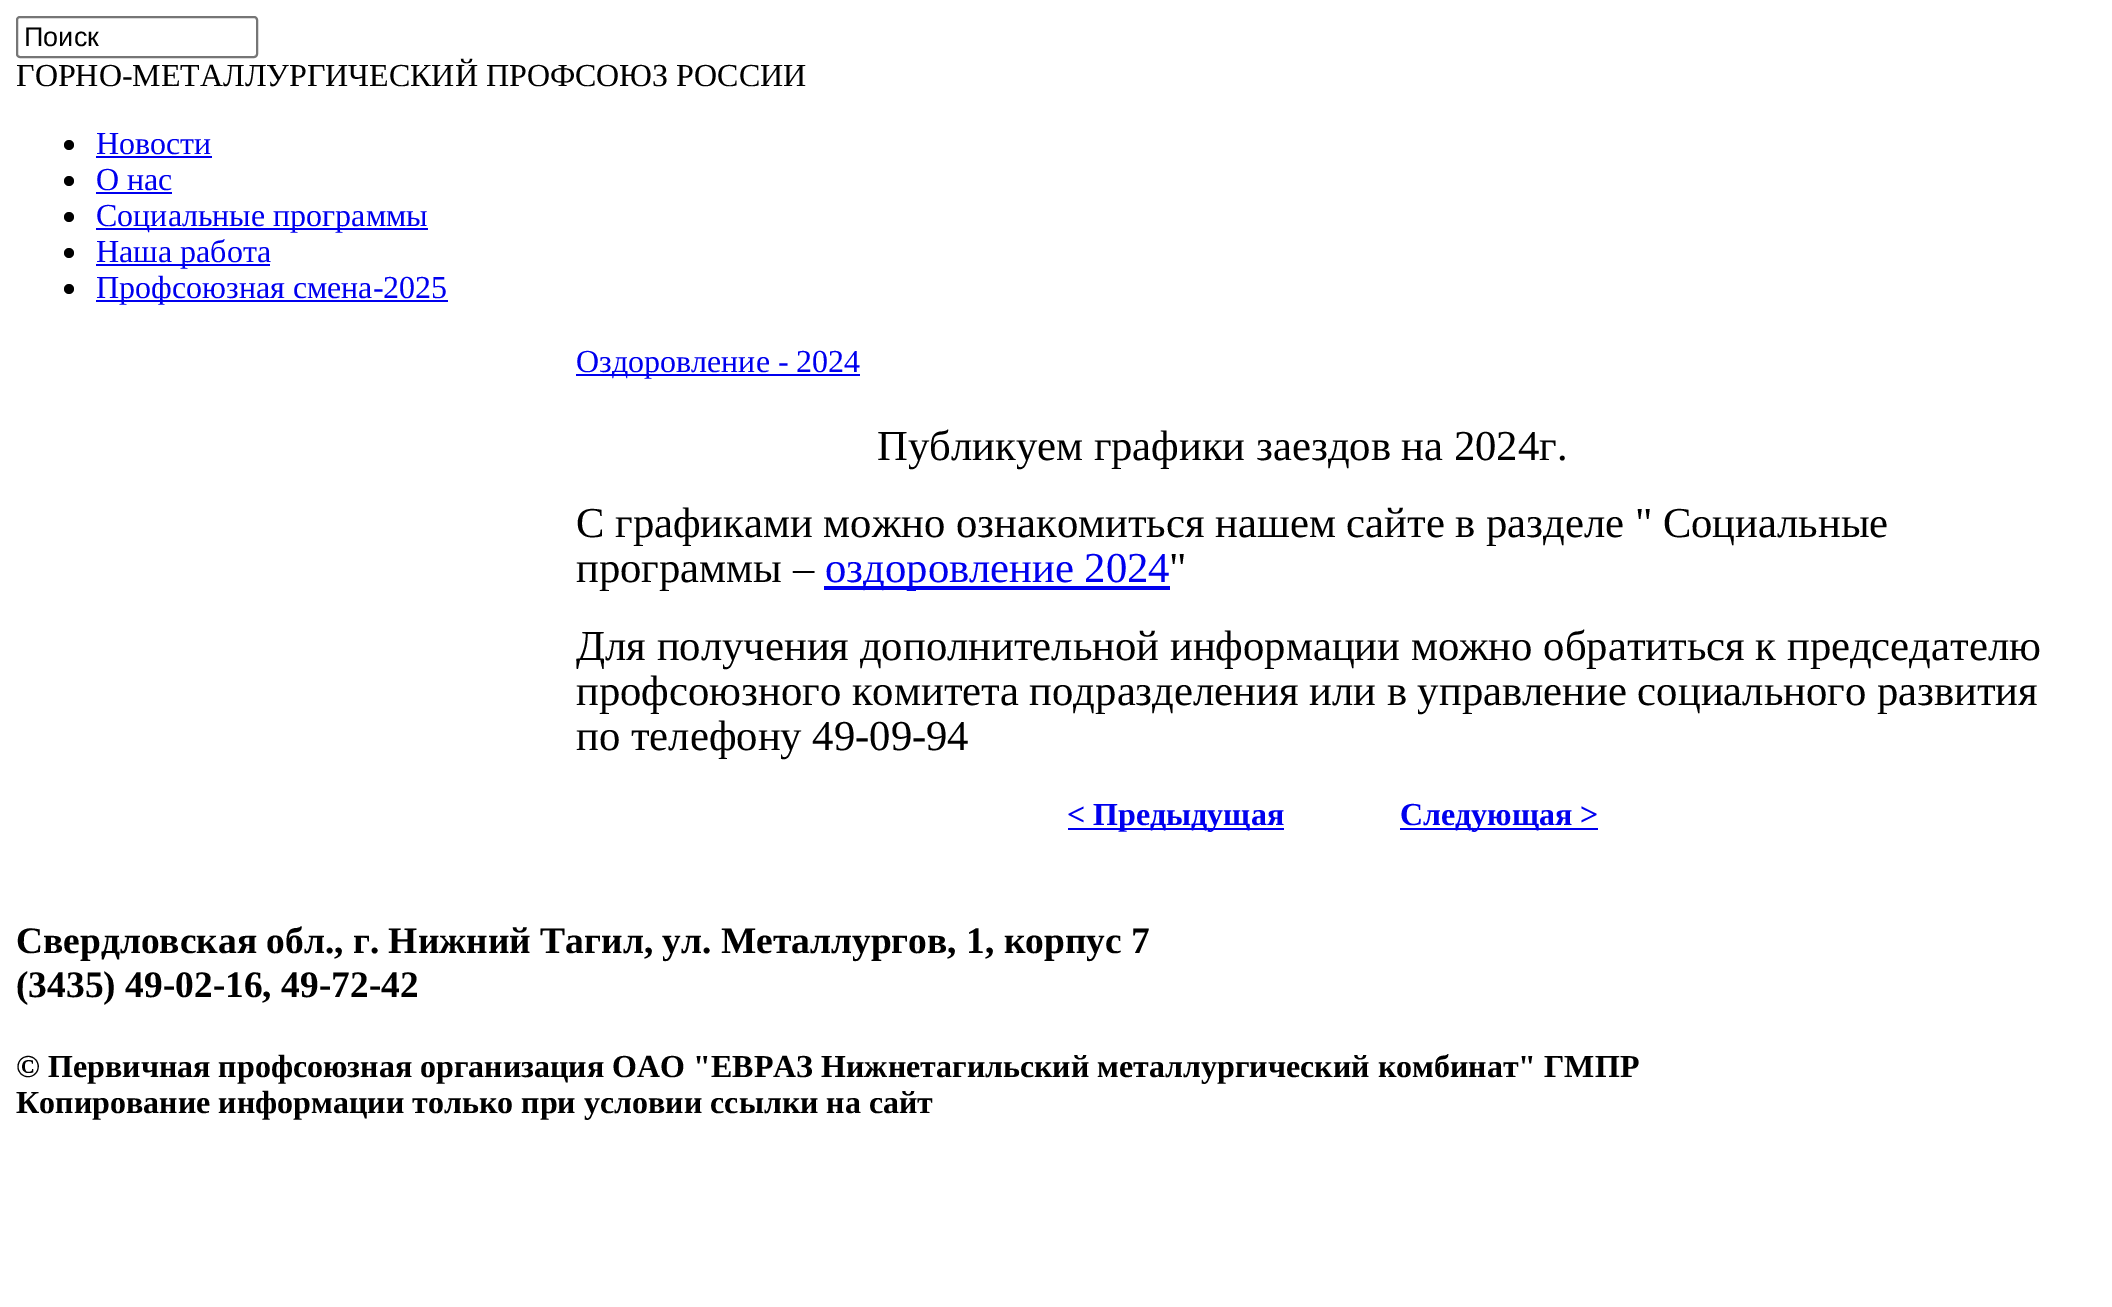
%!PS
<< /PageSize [2112 1307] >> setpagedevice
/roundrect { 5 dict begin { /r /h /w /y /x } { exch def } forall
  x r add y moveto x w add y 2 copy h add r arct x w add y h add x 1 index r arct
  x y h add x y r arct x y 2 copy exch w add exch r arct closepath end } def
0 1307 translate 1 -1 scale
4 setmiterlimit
1 setgray
0 0 2112 1307 rectfill
0.463 setgray
2 setlinewidth
17 17 240 40 3 roundrect stroke
/LiberationSans-Regular [27 0 0 -27 0 0] selectfont
0 setgray
24 46 moveto (Поиск) show
/LiberationSerif-Regular [32 0 0 -32 0 0] selectfont
16 86 moveto (ГОРНО-МЕТАЛЛУРГИЧЕСКИЙ ПРОФСОЮЗ РОССИИ) show
newpath 69 145 5 0 360 arc closepath fill
0 0 0.933 setrgbcolor
96 154 moveto (Новости) show
96 156 116 2 rectfill
0 setgray
newpath 69 181 5 0 360 arc closepath fill
0 0 0.933 setrgbcolor
96 190 moveto (О нас) show
96 192 76 2 rectfill
0 setgray
newpath 69 217 5 0 360 arc closepath fill
0 0 0.933 setrgbcolor
96 228 332 2 rectfill
96 226 moveto (Социальные программы) show
0 setgray
newpath 69 253 5 0 360 arc closepath fill
0 0 0.933 setrgbcolor
96 264 174 2 rectfill
96 262 moveto (Наша работа) show
0 setgray
newpath 69 289 5 0 360 arc closepath fill
0 0 0.933 setrgbcolor
96 300 352 2 rectfill
96 298 moveto (Профсоюзная смена-2025) show
576 374 284 2 rectfill
576 372 moveto (Оздоровление - 2024) show
/LiberationSerif-Regular [42.65 0 0 -42.65 0 0] selectfont
0 setgray
877 460 moveto (Публикуем графики заездов на 2024г.) show
576 537 moveto (С графиками можно ознакомиться нашем сайте в разделе " Социальные) show
0 0 0.933 setrgbcolor
824 586 346 4 rectfill
825 582 moveto (оздоровление 2024) show
0 setgray
1169 582 moveto (") show
576 582 moveto (программы –) show
576 660 moveto (Для получения дополнительной информации можно обратиться к председателю) show
576 705 moveto (профсоюзного комитета подразделения или в управление социального развития) show
576 750 moveto (по телефону 49-09-94) show
0 0 0.933 setrgbcolor
1068 828 216 2 rectfill
/LiberationSerif-Bold [32 0 0 -32 0 0] selectfont
1067 825 moveto (< Предыдущая) show
1400 828 198 2 rectfill
1400 825 moveto (Следующая >) show
/LiberationSerif-Bold [37.45 0 0 -37.45 0 0] selectfont
0 setgray
16 953 moveto (Свердловская обл., г. Нижний Тагил, ул. Металлургов, 1, корпус 7) show
16 997 moveto (\(3435\) 49-02-16, 49-72-42) show
/LiberationSerif-Bold [32 0 0 -32 0 0] selectfont
16 1077 moveto (© Первичная профсоюзная организация ОАО "ЕВРАЗ Нижнетагильский металлургический комбинат" ГМПР) show
16 1113 moveto (Копирование информации только при условии ссылки на сайт) show
showpage
